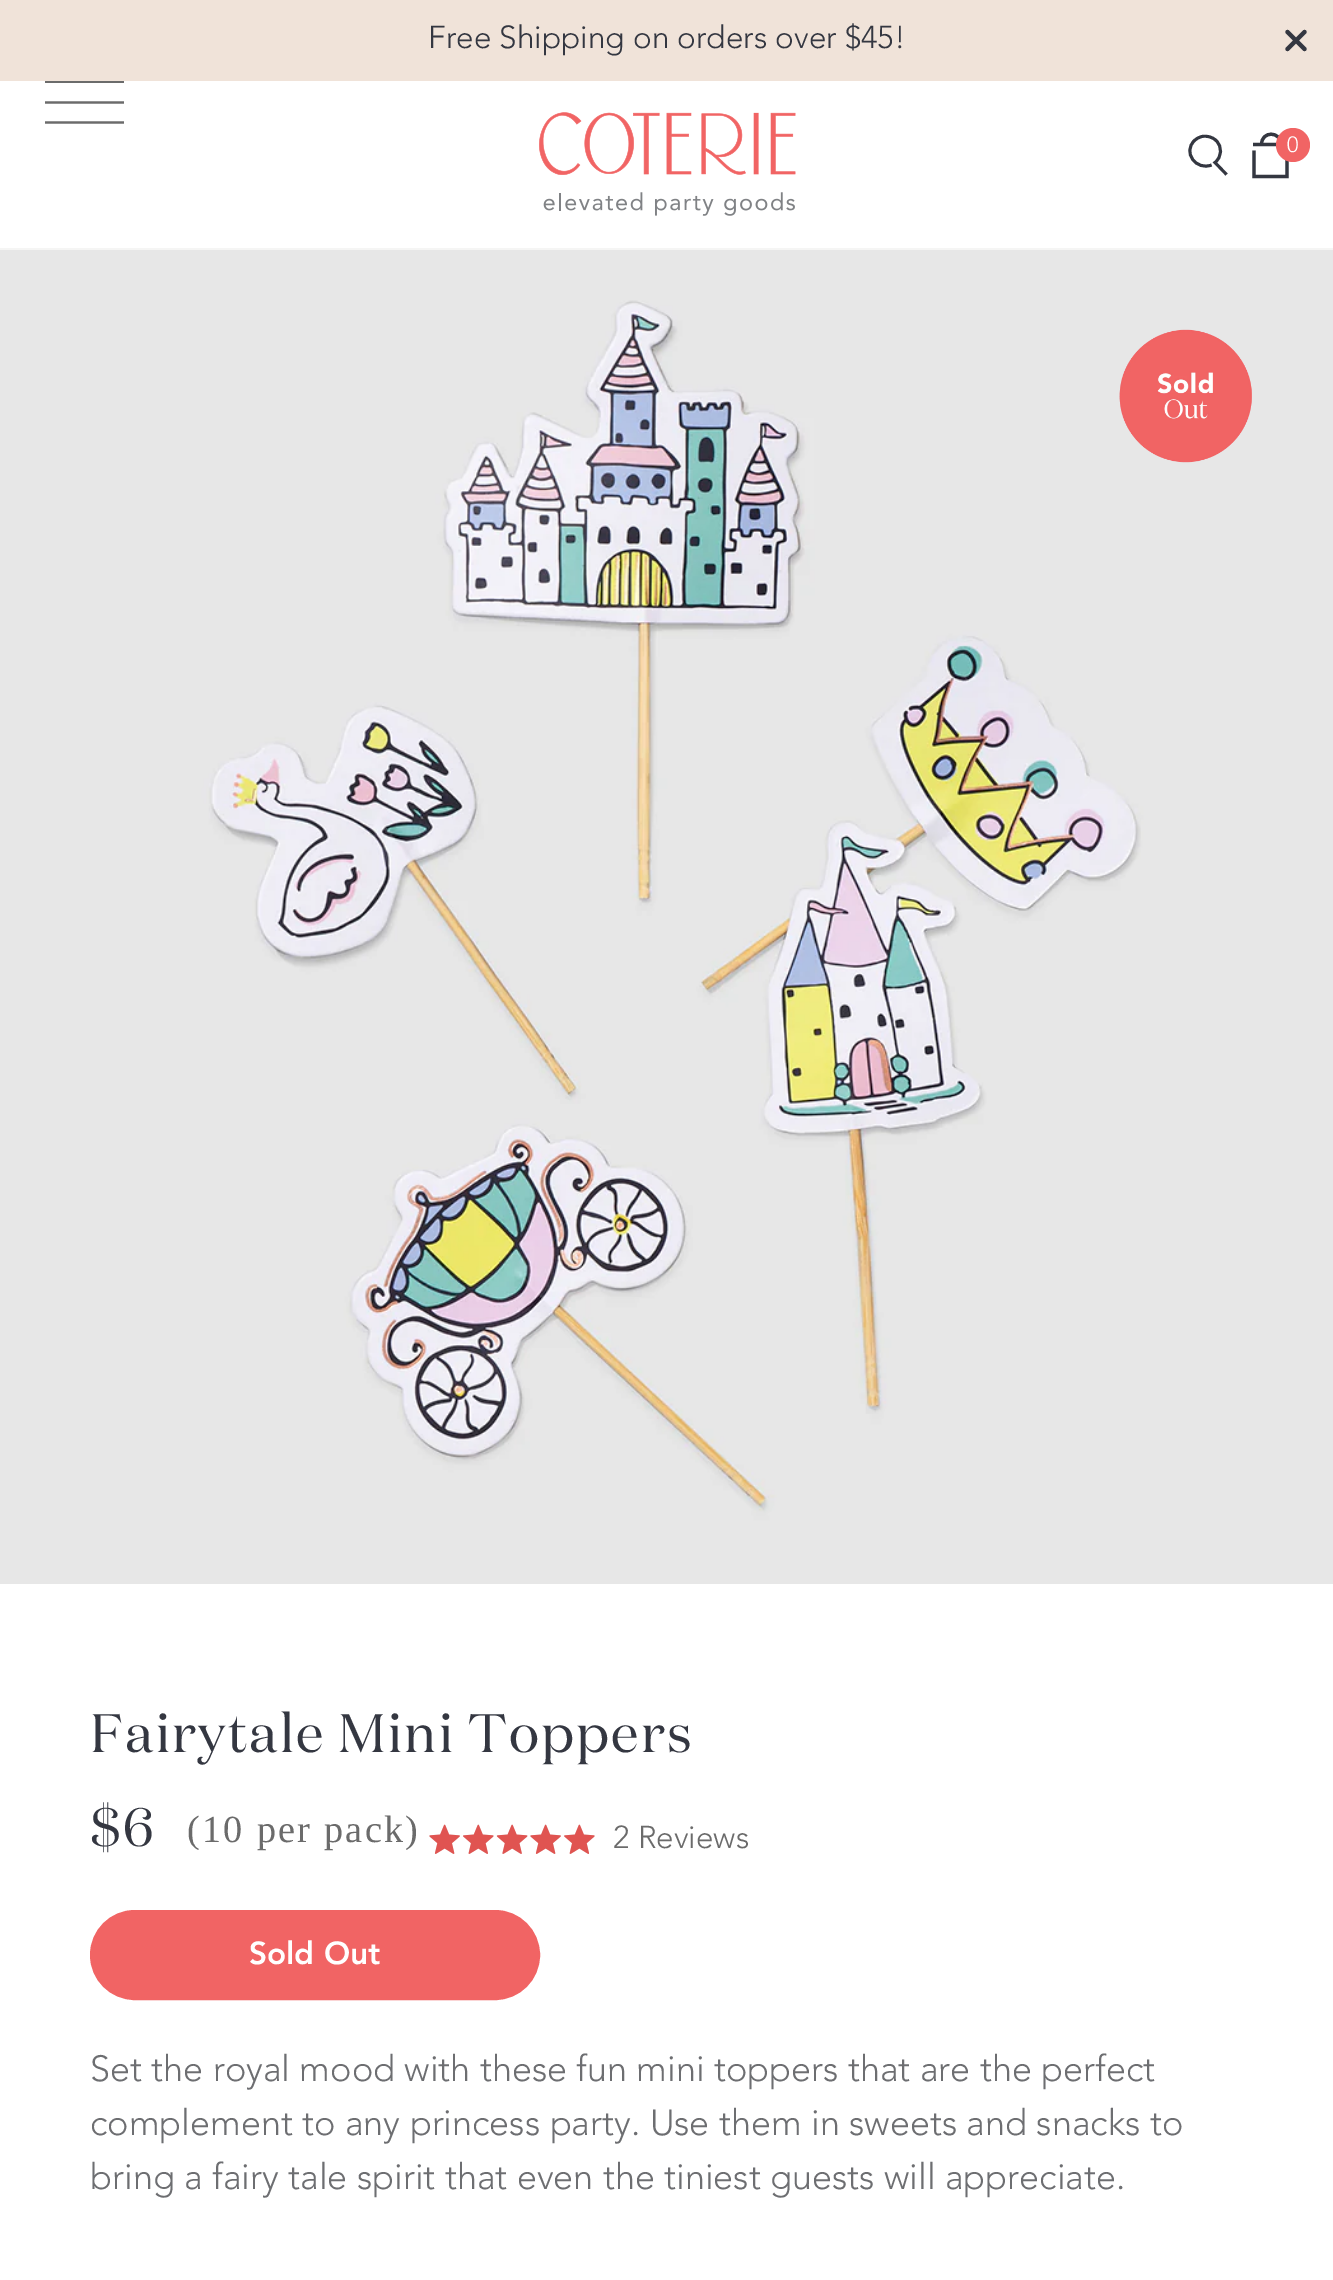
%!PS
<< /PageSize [1333 2280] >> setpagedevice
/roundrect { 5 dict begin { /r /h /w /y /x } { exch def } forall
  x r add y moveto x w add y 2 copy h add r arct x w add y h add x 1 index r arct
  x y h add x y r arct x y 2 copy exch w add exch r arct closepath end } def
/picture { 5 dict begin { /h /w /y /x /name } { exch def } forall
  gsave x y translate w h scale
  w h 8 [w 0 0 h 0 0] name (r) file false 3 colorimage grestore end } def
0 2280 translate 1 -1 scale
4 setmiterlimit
1 setgray
0 0 1333 2280 rectfill
0.941 0.89 0.851 setrgbcolor
0 0 1333 81 rectfill
/Avenir-Regular [31.5 0 0 -31.5 0 0] selectfont
0.204 0.216 0.255 setrgbcolor
428 48 moveto (Free Shipping on orders over $45!) show
4.2 setlinewidth
1 setlinecap
newpath 1287.5 32 moveto 1304.5 49 lineto 1287.5 49 moveto 1304.5 32 lineto stroke
0.961 0.961 0.957 setrgbcolor
0 248 1333 2 rectfill
0.42 setgray
45 81 79 2 rectfill
2.2 setlinewidth
0 setlinecap
newpath 45 102.5 moveto 124 102.5 lineto stroke
newpath 45 122.5 moveto 124 122.5 lineto stroke
(img1.rgb) 539 112 257 104 picture
0.204 0.216 0.255 setrgbcolor
2.9 setlinewidth
newpath 1211.5 165 moveto 1196.5 171 1182 152.5 1194.5 140.5 curveto 1196.5 138.5 1199.5 137 1202 136.5 curveto 1207 135.5 1212.5 137 1216 140.5 curveto 1222.5 146.5 1222 157 1215 162.5 curveto 1226.5 174.5 lineto stroke
3.2 setlinewidth
newpath 1254 150.5 moveto 1254 176.5 lineto 1287 176.5 lineto 1287 144.5 lineto 1253 144.5 lineto 1261.5 144.5 moveto 1261.5 130.5 1281 131 1281 144.5 curveto stroke
0.945 0.392 0.392 setrgbcolor
newpath 1293 145 17 0 360 arc closepath fill
/Avenir-Regular [22 0 0 -22 0 0] selectfont
1 setgray
1287 152 moveto (0) show
(img2.rgb) 0 250 1333 1334 picture
(img3.rgb) 1119 329 133 134 picture
/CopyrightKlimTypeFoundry-Regular [54 0 0 -54 0 0] selectfont
0.204 0.216 0.255 setrgbcolor
90 1752 moveto 2.25 0 (Fairytale Mini Toppers) ashow
90 1846 moveto 2.25 0 ($6) ashow
/LiberationSerif-Regular [38.25 0 0 -38.25 0 0] selectfont
0.42 setgray
187 1842 moveto 2.25 0 (\(10 per pack\)) ashow
(img4.rgb) 429 1824 166 30 picture
(img5.rgb) 429 1824 166 30 picture
/Avenir-Regular [31.5 0 0 -31.5 0 0] selectfont
613 1848 moveto (2 Reviews) show
0.945 0.392 0.392 setrgbcolor
91 1911 448 88 44 roundrect gsave fill grestore
2 setlinewidth
stroke
/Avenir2-Regular [31.5 0 0 -31.5 0 0] selectfont
1 setgray
249 1964 moveto (Sold Out) show
/Avenir-Regular [36 0 0 -36 0 0] selectfont
0.427 0.431 0.443 setrgbcolor
90 2081 moveto (Set the royal mood with these fun mini toppers that are the perfect) show
90 2135 moveto (complement to any princess party. Use them in sweets and snacks to) show
90 2189 moveto (bring a fairy tale spirit that even the tiniest guests will appreciate.) show
showpage
